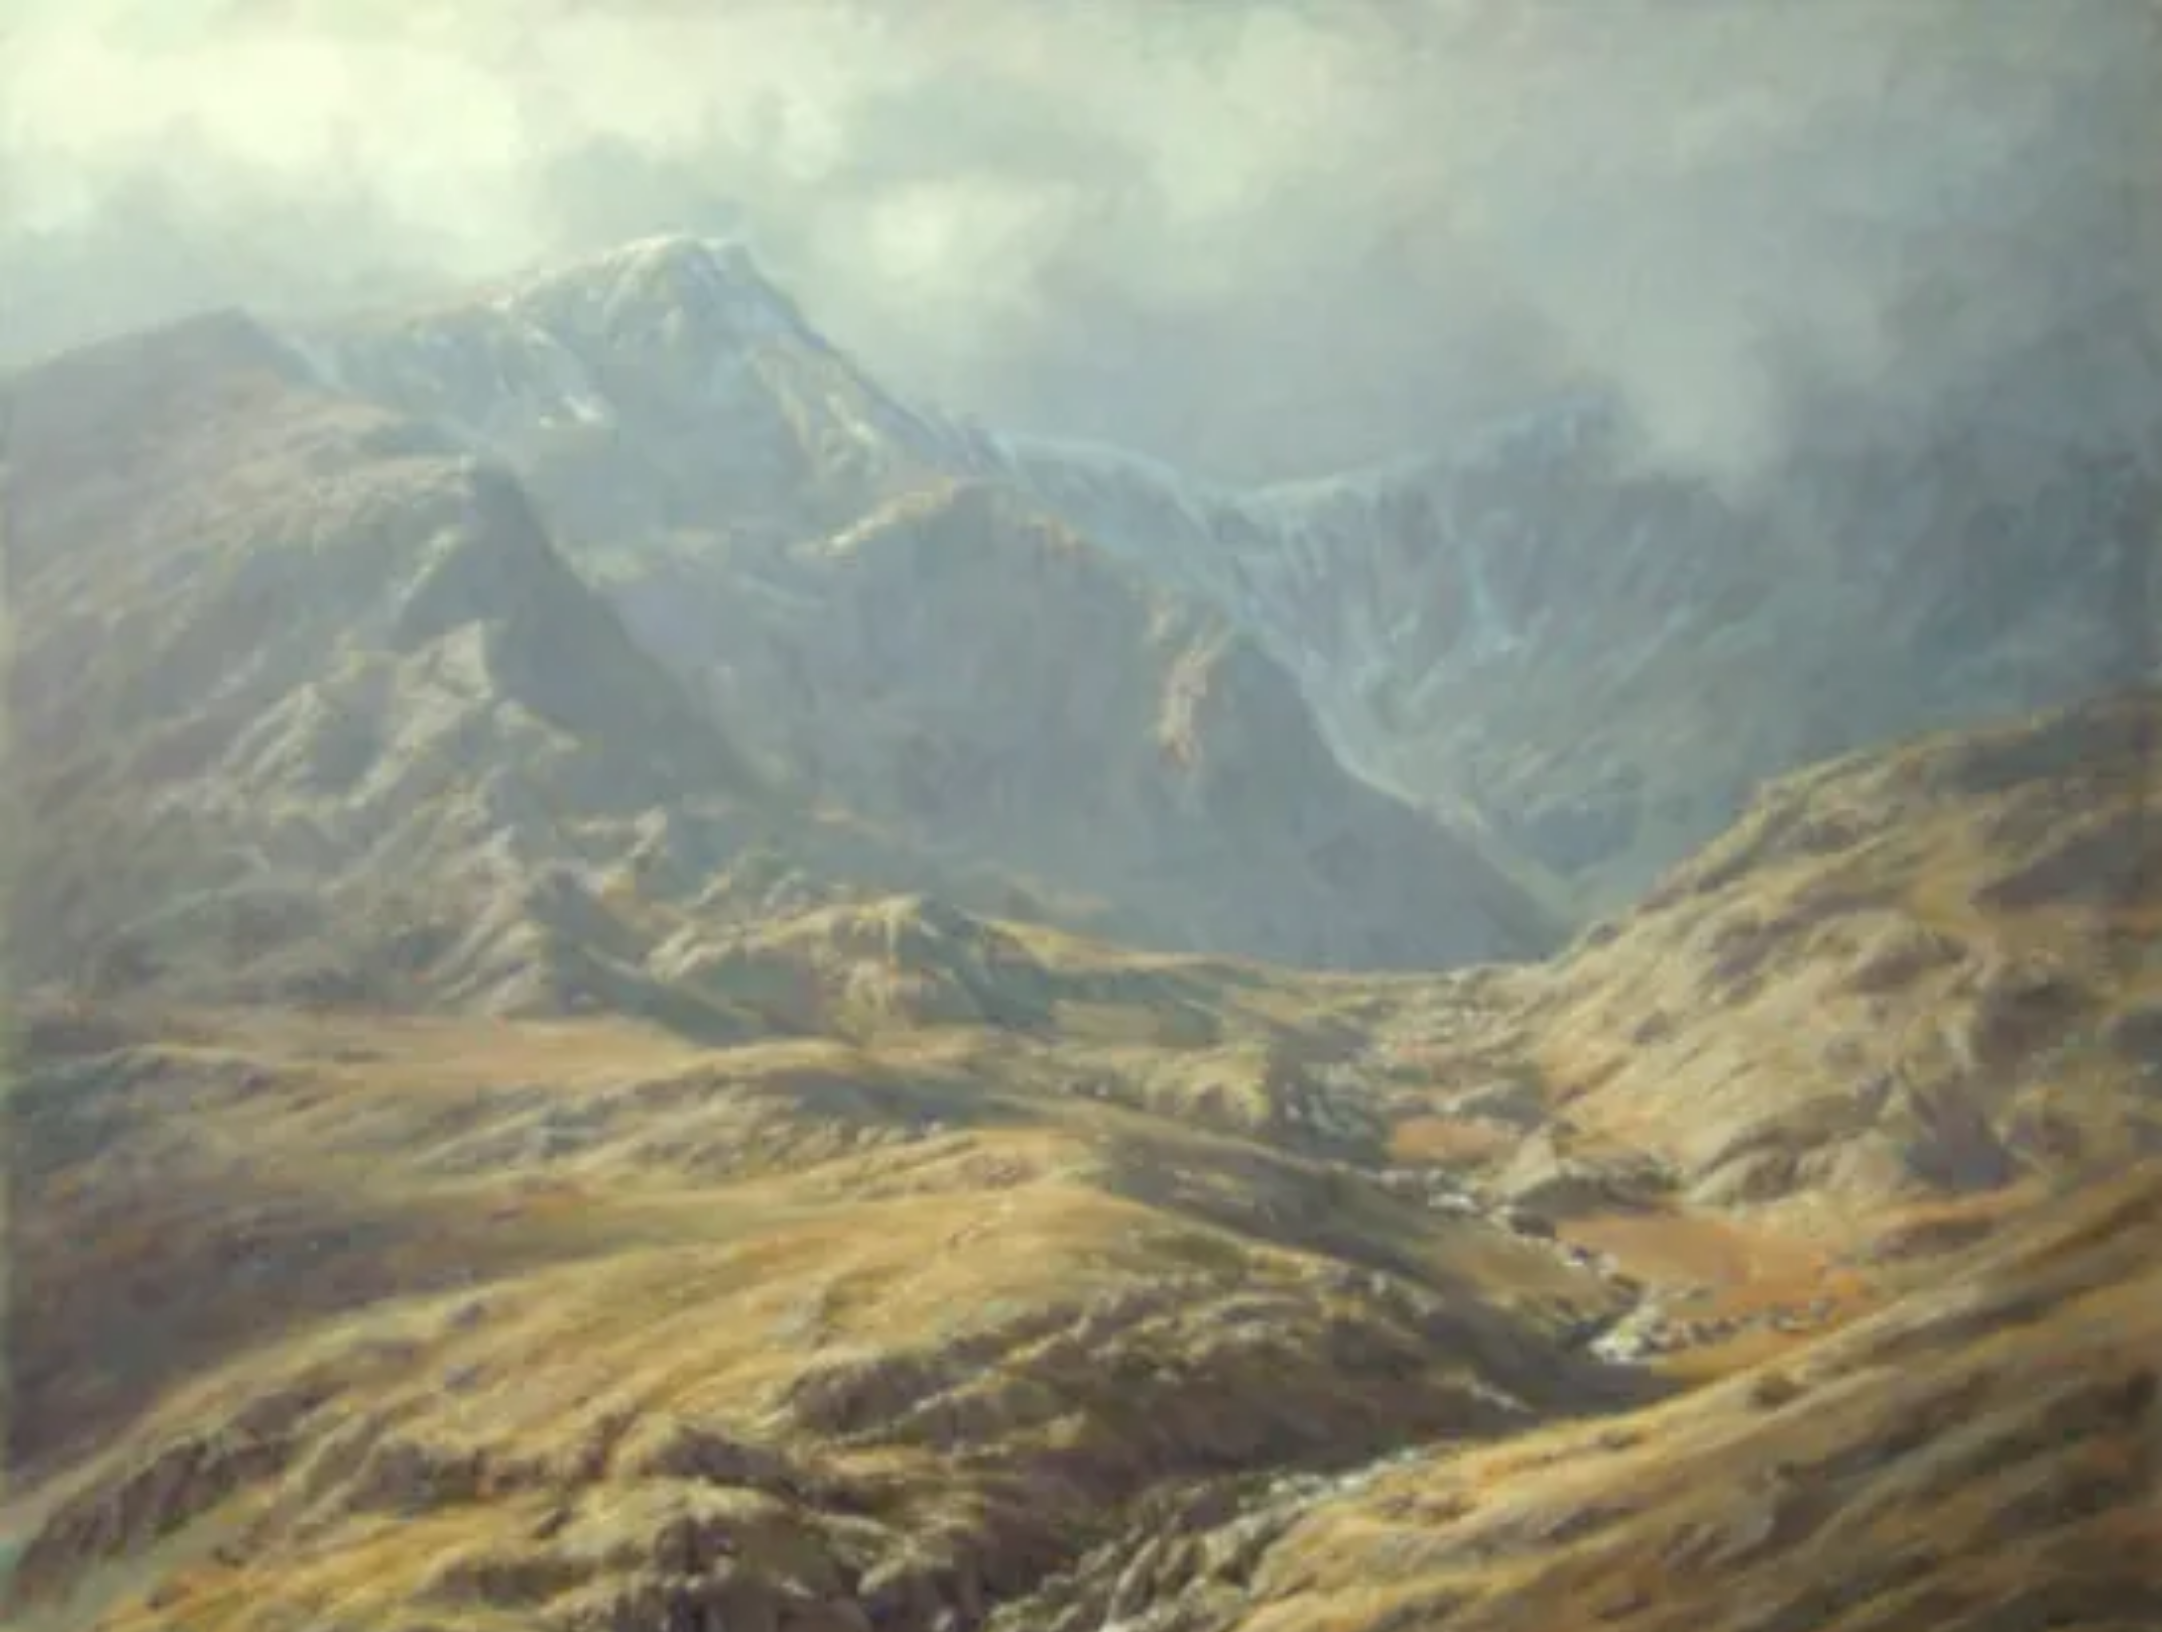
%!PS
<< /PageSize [2162 1632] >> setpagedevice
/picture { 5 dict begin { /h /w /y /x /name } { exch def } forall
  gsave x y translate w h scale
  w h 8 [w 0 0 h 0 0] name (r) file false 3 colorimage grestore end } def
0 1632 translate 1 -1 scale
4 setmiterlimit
1 setgray
0 0 2162 1632 rectfill
(img1.rgb) 0 0 2162 1632 picture
showpage
